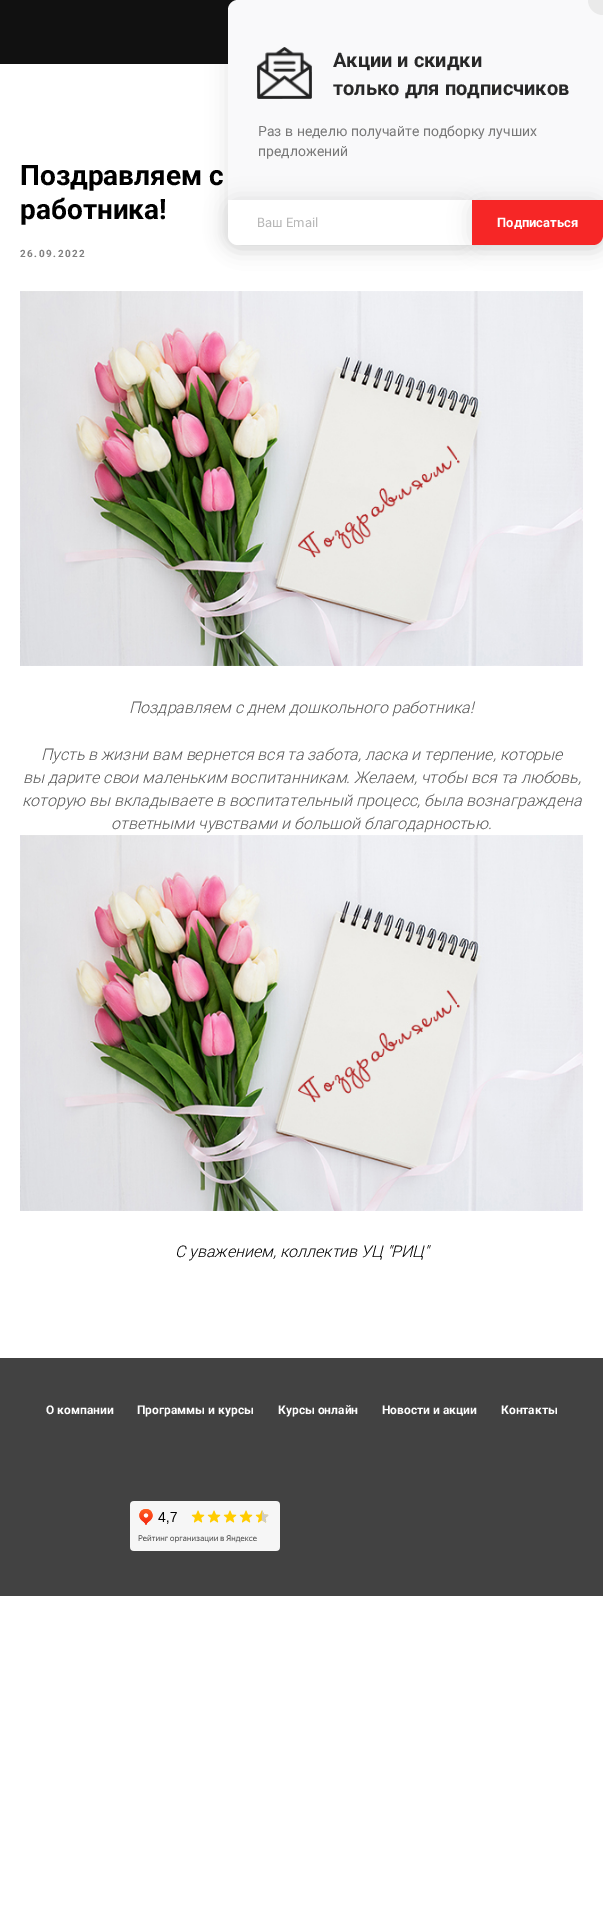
%!PS
<< /PageSize [603 1911] /PageUsesTransparency true >> setpagedevice
/alpha { dup .setfillconstantalpha .setstrokeconstantalpha } def
/roundrect { 5 dict begin { /r /h /w /y /x } { exch def } forall
  x r add y moveto x w add y 2 copy h add r arct x w add y h add x 1 index r arct
  x y h add x y r arct x y 2 copy exch w add exch r arct closepath end } def
/shadow { 12 dict begin { /a /b /q /h /w /y /x } { exch def } forall gsave /was 0 def
  9 -2 -9 { dup b mul 4 div /e exch def 1 sub .425 mul 2.718 exch exp 1 add a .99 .min exch div /now exch def
    1 1 now sub 1 was sub div sub alpha /was now def
    w h .min e 2 mul add 0 gt { x e sub y e sub w e 2 mul add h e 2 mul add
      q e add b .6 mul add w h .min 2 div e add .min 0 .max roundrect fill } if } for grestore end } def
/picture { 5 dict begin { /h /w /y /x /name } { exch def } forall
  gsave x y translate w h scale
  w h 8 [w 0 0 h 0 0] name (r) file false 3 colorimage grestore end } def
0 .pushpdf14devicefilter
0 1911 translate 1 -1 scale
4 setmiterlimit
1 setgray
0 0 603 1911 rectfill
0.067 setgray
0 0 238 64 rectfill
0.004 0.008 0.008 setrgbcolor
227 -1 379 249 12 10 0.1 shadow
0.976 0.976 0.98 setrgbcolor
228 0 375 245 10 roundrect fill
0.918 setgray
newpath 603 0 15 0 360 arc closepath fill
(img1.rgb) 257 47 55 52 picture
/Roboto-Bold [20 0 0 -20 0 0] selectfont
0.157 setgray
333 67 moveto (Акции и скидки) show
333 95 moveto (только для подписчиков) show
/Roboto-Regular [14 0 0 -14 0 0] selectfont
0.471 setgray
258 136 moveto (Раз в неделю получайте подборку лучших) show
258 156 moveto (предложений) show
0.004 0.008 0.008 setrgbcolor
225 199 248 49 12 10 0.1 shadow
1 setgray
newpath 228 200 moveto 472 200 lineto 472 245 lineto 238 245 lineto 232.5 245 228 240.5 228 235 curveto closepath fill
/Roboto-Regular [13 0 0 -13 0 0] selectfont
0.722 setgray
257 227 moveto (Ваш Email) show
0.004 0.008 0.008 setrgbcolor
469 199 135 49 12 10 0.1 shadow
0.965 0.149 0.149 setrgbcolor
newpath 472 200 moveto 603 200 lineto 603 235 lineto 603 240.5 598.5 245 593 245 curveto 472 245 lineto closepath fill
/Roboto-Bold [13 0 0 -13 0 0] selectfont
1 setgray
497 227 moveto (Подписаться) show
/Roboto-Bold [28 0 0 -28 0 0] selectfont
0 setgray
20 185 moveto (Поздравляем с) show
20 219 moveto (работника!) show
/Roboto-Bold [10 0 0 -10 0 0] selectfont
0.502 setgray
20 257 moveto 1.5 0 (26.09.2022) ashow
(img2.rgb) 20 291 563 375 picture
/Roboto-LightItalic [16 0 0 -16 0 0] selectfont
0.333 setgray
129 713 moveto (Поздравляем с днем дошкольного работника!) show
41 760 moveto (Пусть в жизни вам вернется вся та забота, ласка и терпение, которые) show
23 783 moveto (вы дарите свои маленьким воспитанникам. Желаем, чтобы вся та любовь,) show
22 806 moveto (которую вы вкладываете в воспитательный процесс, была вознаграждена) show
111 829 moveto (ответными чувствами и большой благодарностью.) show
(img3.rgb) 20 835 563 376 picture
0 setgray
175 1257 moveto (С уважением, коллектив УЦ "РИЦ") show
0.259 setgray
0 1358 603 238 rectfill
/Roboto-Bold [12 0 0 -12 0 0] selectfont
1 setgray
46 1414 moveto (О компании) show
137 1414 moveto (Программы и курсы) show
278 1414 moveto (Курсы онлайн) show
382 1414 moveto (Новости и акции) show
501 1414 moveto (Контакты) show
(img4.rgb) 130 1501 150 50 picture
.poppdf14devicefilter showpage
